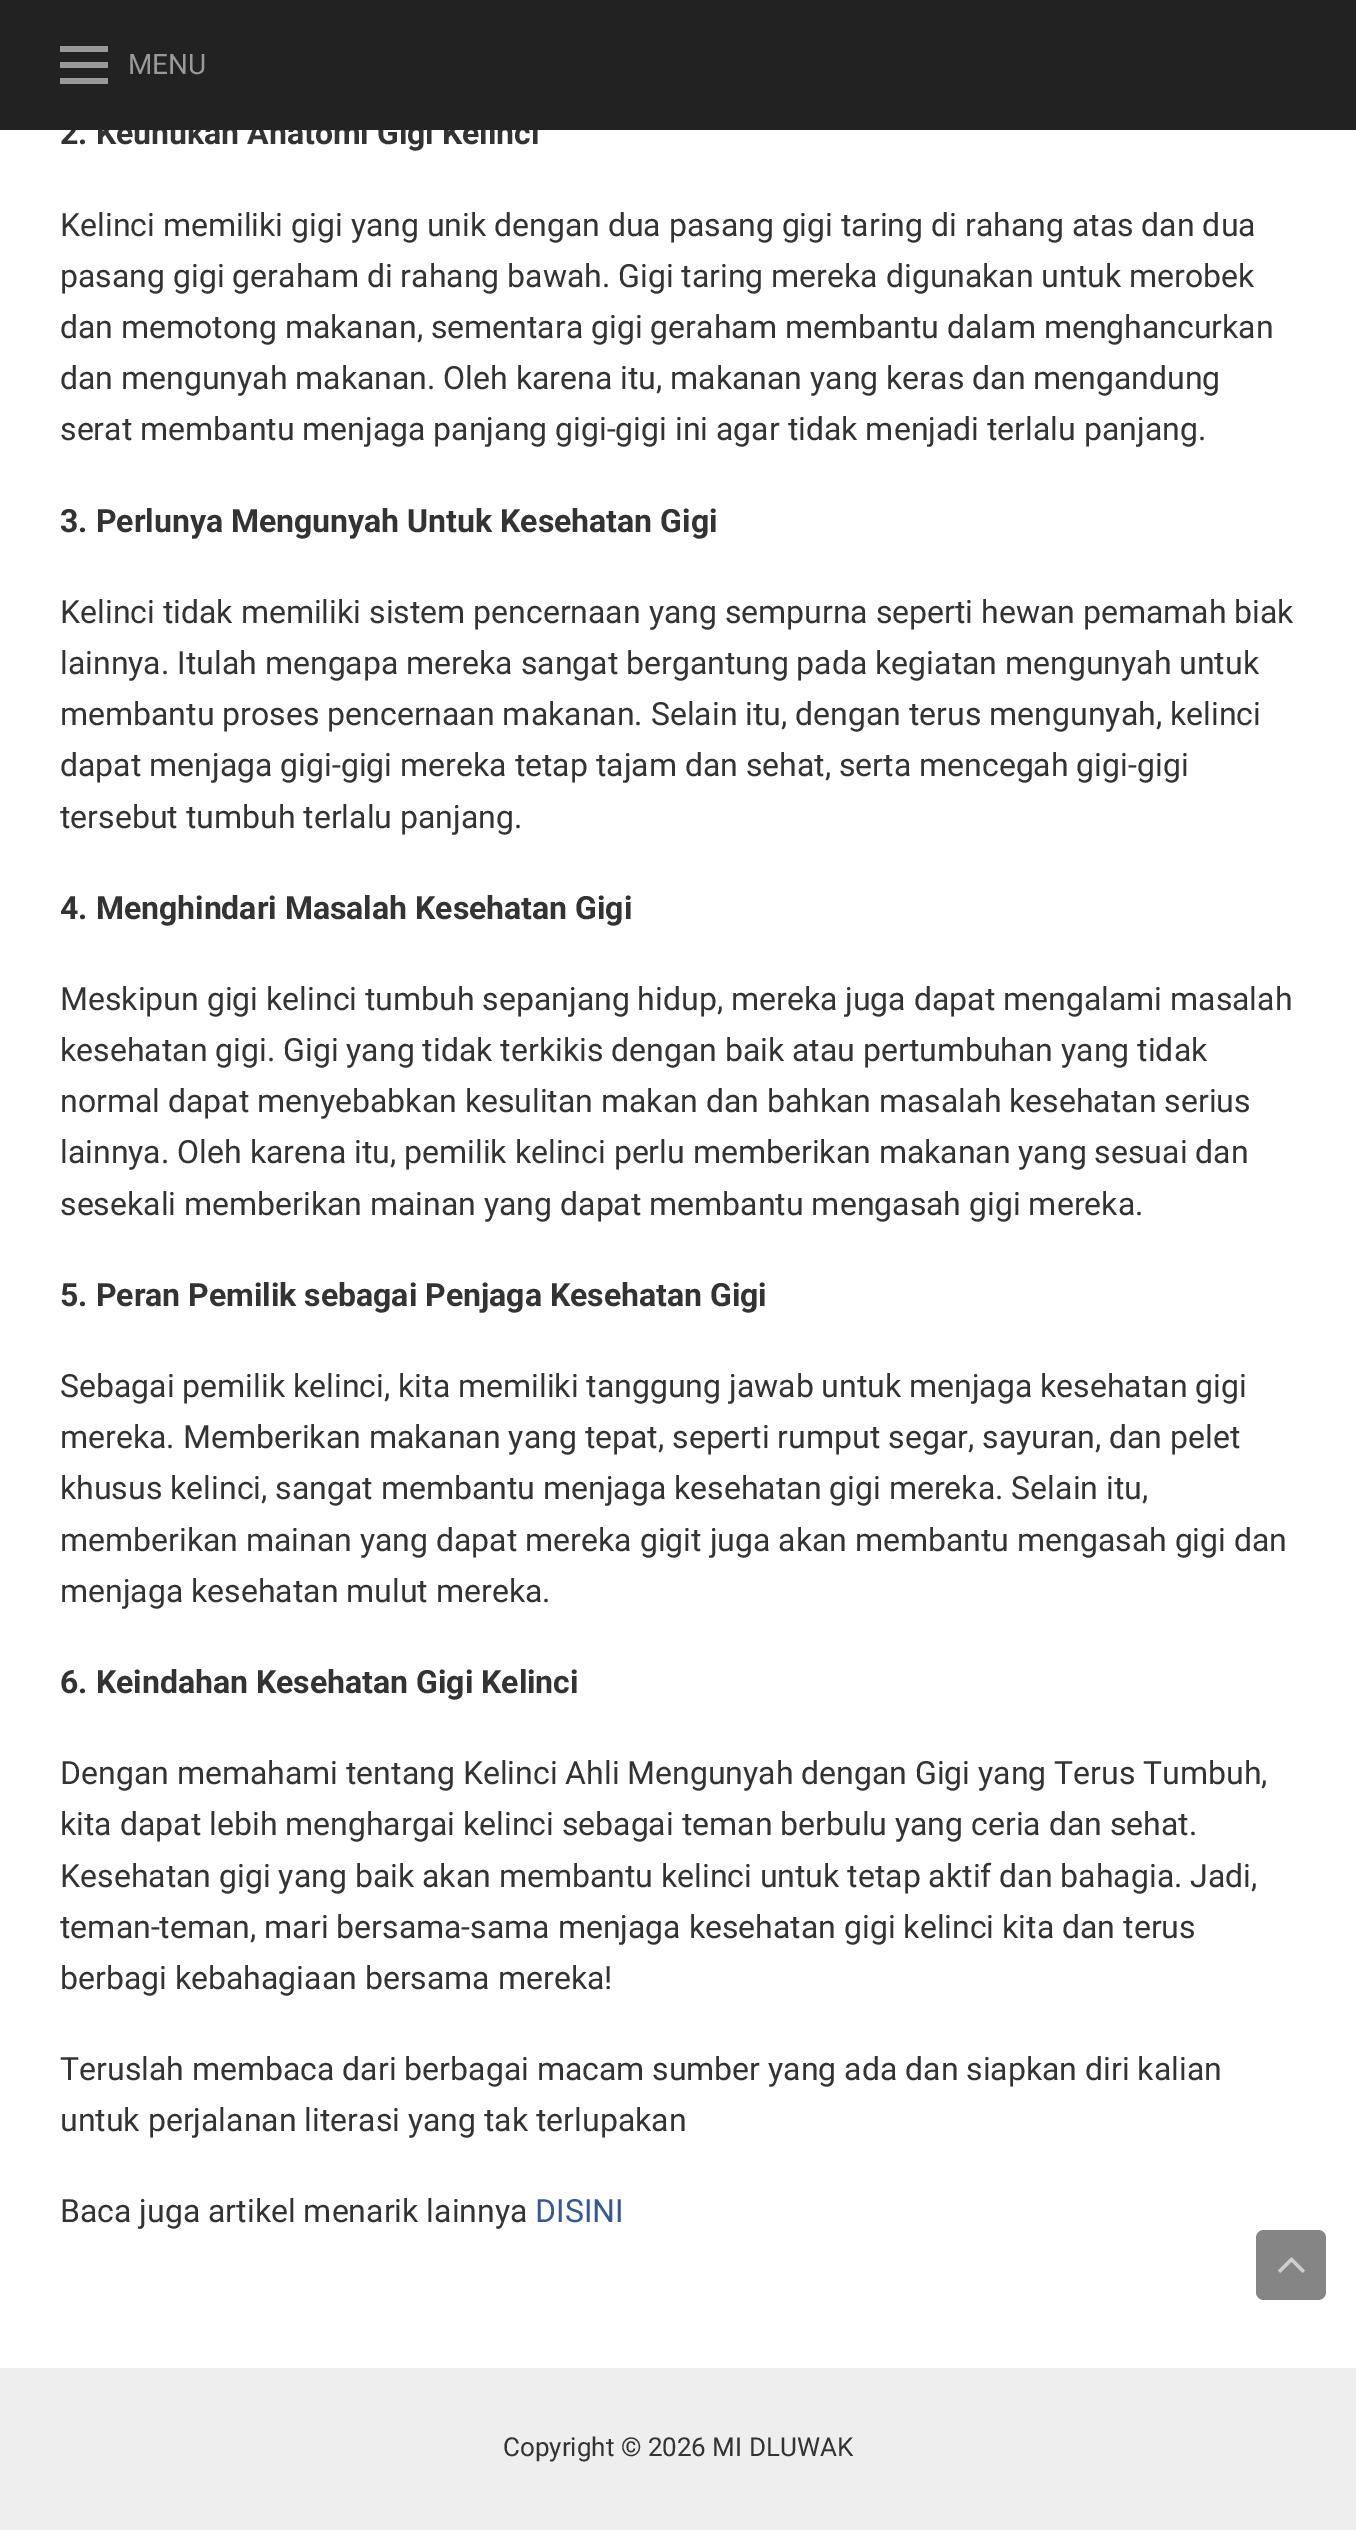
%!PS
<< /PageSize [1356 2530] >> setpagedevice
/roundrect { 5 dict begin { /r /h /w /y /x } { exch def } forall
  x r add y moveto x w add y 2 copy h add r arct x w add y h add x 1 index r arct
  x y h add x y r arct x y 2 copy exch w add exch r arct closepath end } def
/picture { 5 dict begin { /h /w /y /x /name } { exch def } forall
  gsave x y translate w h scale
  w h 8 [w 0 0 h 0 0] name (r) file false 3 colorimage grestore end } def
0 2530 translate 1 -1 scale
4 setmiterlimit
0.933 setgray
0 0 1356 2530 rectfill
1 setgray
0 130 1356 2238 rectfill
/Roboto-Bold [32 0 0 -32 0 0] selectfont
0.2 setgray
60 144 moveto (2. Keunukan Anatomi Gigi Kelinci) show
0.133 setgray
0 0 1356 130 rectfill
0.6 setgray
60 46 48 6 rectfill
60 62 48 6 rectfill
60 78 48 6 rectfill
/Roboto-Regular [28 0 0 -28 0 0] selectfont
128 74 moveto (MENU) show
/Roboto-Regular [32 0 0 -32 0 0] selectfont
0.2 setgray
60 236 moveto (Kelinci memiliki gigi yang unik dengan dua pasang gigi taring di rahang atas dan dua) show
60 287 moveto (pasang gigi geraham di rahang bawah. Gigi taring mereka digunakan untuk merobek) show
60 338 moveto (dan memotong makanan, sementara gigi geraham membantu dalam menghancurkan) show
60 389 moveto (dan mengunyah makanan. Oleh karena itu, makanan yang keras dan mengandung) show
60 440 moveto (serat membantu menjaga panjang gigi-gigi ini agar tidak menjadi terlalu panjang.) show
/Roboto-Bold [32 0 0 -32 0 0] selectfont
60 532 moveto (3. Perlunya Mengunyah Untuk Kesehatan Gigi) show
/Roboto-Regular [32 0 0 -32 0 0] selectfont
60 623 moveto (Kelinci tidak memiliki sistem pencernaan yang sempurna seperti hewan pemamah biak) show
60 674 moveto (lainnya. Itulah mengapa mereka sangat bergantung pada kegiatan mengunyah untuk) show
60 725 moveto (membantu proses pencernaan makanan. Selain itu, dengan terus mengunyah, kelinci) show
60 776 moveto (dapat menjaga gigi-gigi mereka tetap tajam dan sehat, serta mencegah gigi-gigi) show
60 828 moveto (tersebut tumbuh terlalu panjang.) show
/Roboto-Bold [32 0 0 -32 0 0] selectfont
60 919 moveto (4. Menghindari Masalah Kesehatan Gigi) show
/Roboto-Regular [32 0 0 -32 0 0] selectfont
60 1010 moveto (Meskipun gigi kelinci tumbuh sepanjang hidup, mereka juga dapat mengalami masalah) show
60 1061 moveto (kesehatan gigi. Gigi yang tidak terkikis dengan baik atau pertumbuhan yang tidak) show
60 1112 moveto (normal dapat menyebabkan kesulitan makan dan bahkan masalah kesehatan serius) show
60 1163 moveto (lainnya. Oleh karena itu, pemilik kelinci perlu memberikan makanan yang sesuai dan) show
60 1215 moveto (sesekali memberikan mainan yang dapat membantu mengasah gigi mereka.) show
/Roboto-Bold [32 0 0 -32 0 0] selectfont
60 1306 moveto (5. Peran Pemilik sebagai Penjaga Kesehatan Gigi) show
/Roboto-Regular [32 0 0 -32 0 0] selectfont
60 1397 moveto (Sebagai pemilik kelinci, kita memiliki tanggung jawab untuk menjaga kesehatan gigi) show
60 1448 moveto (mereka. Memberikan makanan yang tepat, seperti rumput segar, sayuran, dan pelet) show
60 1499 moveto (khusus kelinci, sangat membantu menjaga kesehatan gigi mereka. Selain itu,) show
60 1551 moveto (memberikan mainan yang dapat mereka gigit juga akan membantu mengasah gigi dan) show
60 1602 moveto (menjaga kesehatan mulut mereka.) show
/Roboto-Bold [32 0 0 -32 0 0] selectfont
60 1693 moveto (6. Keindahan Kesehatan Gigi Kelinci) show
/Roboto-Regular [32 0 0 -32 0 0] selectfont
60 1784 moveto (Dengan memahami tentang Kelinci Ahli Mengunyah dengan Gigi yang Terus Tumbuh,) show
60 1835 moveto (kita dapat lebih menghargai kelinci sebagai teman berbulu yang ceria dan sehat.) show
60 1887 moveto (Kesehatan gigi yang baik akan membantu kelinci untuk tetap aktif dan bahagia. Jadi,) show
60 1938 moveto (teman-teman, mari bersama-sama menjaga kesehatan gigi kelinci kita dan terus) show
60 1989 moveto (berbagi kebahagiaan bersama mereka!) show
60 2080 moveto (Teruslah membaca dari berbagai macam sumber yang ada dan siapkan diri kalian) show
60 2131 moveto (untuk perjalanan literasi yang tak terlupakan) show
60 2222 moveto (Baca juga artikel menarik lainnya) show
0.212 0.345 0.6 setrgbcolor
535 2222 moveto (DISINI) show
/Roboto-Regular [26 0 0 -26 0 0] selectfont
0.2 setgray
503 2456 moveto (Copyright © 2026 MI DLUWAK) show
0.522 setgray
1256 2230 70 70 8 roundrect fill
(img1.rgb) 1278 2257 27 16 picture
showpage
